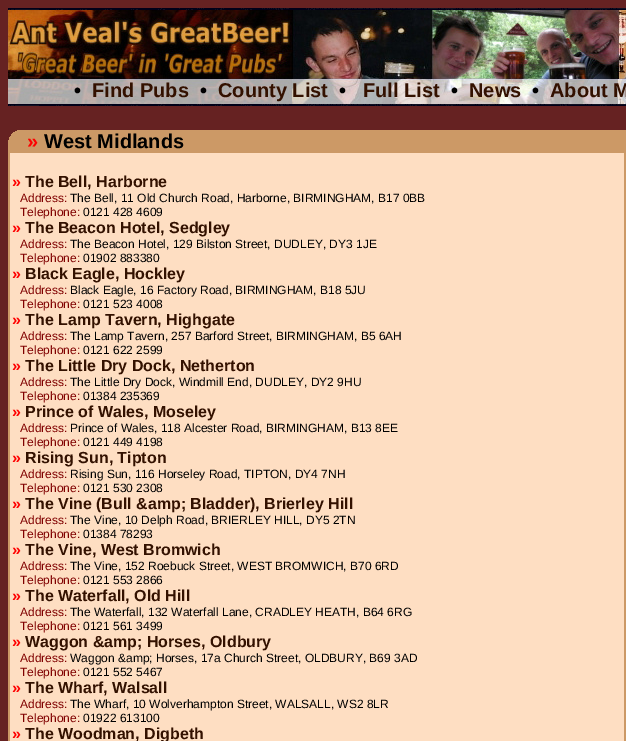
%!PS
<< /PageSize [626 741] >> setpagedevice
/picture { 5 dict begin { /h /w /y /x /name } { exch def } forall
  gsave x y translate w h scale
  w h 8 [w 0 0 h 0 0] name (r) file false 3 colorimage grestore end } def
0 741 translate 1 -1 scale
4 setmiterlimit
0.4 0.133 0.133 setrgbcolor
0 0 626 741 rectfill
(img1.rgb) 8 8 618 2 picture
(img2.rgb) 8 10 618 69 picture
(img3.rgb) 8 79 618 25 picture
/LiberationSans-Bold [20 0 0 -20 0 0] selectfont
0 setgray
74 97 moveto (•) show
0.2 0.067 0 setrgbcolor
92 97 moveto (Find Pubs) show
0 setgray
200 97 moveto (•) show
0.2 0.067 0 setrgbcolor
218 97 moveto (County List) show
0 setgray
339 97 moveto (•) show
0.2 0.067 0 setrgbcolor
363 97 moveto (Full List) show
0 setgray
451 97 moveto (•) show
0.2 0.067 0 setrgbcolor
469 97 moveto (News) show
0 setgray
532 97 moveto (•) show
0.2 0.067 0 setrgbcolor
550 97 moveto (About M) show
(img1.rgb) 8 104 618 2 picture
0.8 0.6 0.4 setrgbcolor
8 130 618 23 rectfill
(img4.rgb) 8 130 9 10 picture
1 0 0 setrgbcolor
27 148 moveto (») show
0 setgray
44 148 moveto (West Midlands) show
0.8 0.6 0.4 setrgbcolor
8 153 2 588 rectfill
0.996 0.871 0.761 setrgbcolor
10 153 614 588 rectfill
/LiberationSans-Bold [16 0 0 -16 0 0] selectfont
1 0 0 setrgbcolor
12 187 moveto (») show
0.2 0.067 0 setrgbcolor
25 187 moveto (The Bell, Harborne) show
/LiberationSans-Regular [12 0 0 -12 0 0] selectfont
0.502 0 0 setrgbcolor
20 202 moveto (Address:) show
0 setgray
70 202 moveto (The Bell, 11 Old Church Road, Harborne, BIRMINGHAM, B17 0BB) show
0.502 0 0 setrgbcolor
20 216 moveto (Telephone:) show
0 setgray
83 216 moveto (0121 428 4609) show
/LiberationSans-Bold [16 0 0 -16 0 0] selectfont
1 0 0 setrgbcolor
12 233 moveto (») show
0.2 0.067 0 setrgbcolor
25 233 moveto (The Beacon Hotel, Sedgley) show
/LiberationSans-Regular [12 0 0 -12 0 0] selectfont
0.502 0 0 setrgbcolor
20 248 moveto (Address:) show
0 setgray
70 248 moveto (The Beacon Hotel, 129 Bilston Street, DUDLEY, DY3 1JE) show
0.502 0 0 setrgbcolor
20 262 moveto (Telephone:) show
0 setgray
83 262 moveto (01902 883380) show
/LiberationSans-Bold [16 0 0 -16 0 0] selectfont
1 0 0 setrgbcolor
12 279 moveto (») show
0.2 0.067 0 setrgbcolor
25 279 moveto (Black Eagle, Hockley) show
/LiberationSans-Regular [12 0 0 -12 0 0] selectfont
0.502 0 0 setrgbcolor
20 294 moveto (Address:) show
0 setgray
70 294 moveto (Black Eagle, 16 Factory Road, BIRMINGHAM, B18 5JU) show
0.502 0 0 setrgbcolor
20 308 moveto (Telephone:) show
0 setgray
83 308 moveto (0121 523 4008) show
/LiberationSans-Bold [16 0 0 -16 0 0] selectfont
1 0 0 setrgbcolor
12 325 moveto (») show
0.2 0.067 0 setrgbcolor
25 325 moveto (The Lamp Tavern, Highgate) show
/LiberationSans-Regular [12 0 0 -12 0 0] selectfont
0.502 0 0 setrgbcolor
20 340 moveto (Address:) show
0 setgray
70 340 moveto (The Lamp Tavern, 257 Barford Street, BIRMINGHAM, B5 6AH) show
0.502 0 0 setrgbcolor
20 354 moveto (Telephone:) show
0 setgray
83 354 moveto (0121 622 2599) show
/LiberationSans-Bold [16 0 0 -16 0 0] selectfont
1 0 0 setrgbcolor
12 371 moveto (») show
0.2 0.067 0 setrgbcolor
25 371 moveto (The Little Dry Dock, Netherton) show
/LiberationSans-Regular [12 0 0 -12 0 0] selectfont
0.502 0 0 setrgbcolor
20 386 moveto (Address:) show
0 setgray
70 386 moveto (The Little Dry Dock, Windmill End, DUDLEY, DY2 9HU) show
0.502 0 0 setrgbcolor
20 400 moveto (Telephone:) show
0 setgray
83 400 moveto (01384 235369) show
/LiberationSans-Bold [16 0 0 -16 0 0] selectfont
1 0 0 setrgbcolor
12 417 moveto (») show
0.2 0.067 0 setrgbcolor
25 417 moveto (Prince of Wales, Moseley) show
/LiberationSans-Regular [12 0 0 -12 0 0] selectfont
0.502 0 0 setrgbcolor
20 432 moveto (Address:) show
0 setgray
70 432 moveto (Prince of Wales, 118 Alcester Road, BIRMINGHAM, B13 8EE) show
0.502 0 0 setrgbcolor
20 446 moveto (Telephone:) show
0 setgray
83 446 moveto (0121 449 4198) show
/LiberationSans-Bold [16 0 0 -16 0 0] selectfont
1 0 0 setrgbcolor
12 463 moveto (») show
0.2 0.067 0 setrgbcolor
25 463 moveto (Rising Sun, Tipton) show
/LiberationSans-Regular [12 0 0 -12 0 0] selectfont
0.502 0 0 setrgbcolor
20 478 moveto (Address:) show
0 setgray
70 478 moveto (Rising Sun, 116 Horseley Road, TIPTON, DY4 7NH) show
0.502 0 0 setrgbcolor
20 492 moveto (Telephone:) show
0 setgray
83 492 moveto (0121 530 2308) show
/LiberationSans-Bold [16 0 0 -16 0 0] selectfont
1 0 0 setrgbcolor
12 509 moveto (») show
0.2 0.067 0 setrgbcolor
25 509 moveto (The Vine \(Bull &amp; Bladder\), Brierley Hill) show
/LiberationSans-Regular [12 0 0 -12 0 0] selectfont
0.502 0 0 setrgbcolor
20 524 moveto (Address:) show
0 setgray
70 524 moveto (The Vine, 10 Delph Road, BRIERLEY HILL, DY5 2TN) show
0.502 0 0 setrgbcolor
20 538 moveto (Telephone:) show
0 setgray
83 538 moveto (01384 78293) show
/LiberationSans-Bold [16 0 0 -16 0 0] selectfont
1 0 0 setrgbcolor
12 555 moveto (») show
0.2 0.067 0 setrgbcolor
25 555 moveto (The Vine, West Bromwich) show
/LiberationSans-Regular [12 0 0 -12 0 0] selectfont
0.502 0 0 setrgbcolor
20 570 moveto (Address:) show
0 setgray
70 570 moveto (The Vine, 152 Roebuck Street, WEST BROMWICH, B70 6RD) show
0.502 0 0 setrgbcolor
20 584 moveto (Telephone:) show
0 setgray
83 584 moveto (0121 553 2866) show
/LiberationSans-Bold [16 0 0 -16 0 0] selectfont
1 0 0 setrgbcolor
12 601 moveto (») show
0.2 0.067 0 setrgbcolor
25 601 moveto (The Waterfall, Old Hill) show
/LiberationSans-Regular [12 0 0 -12 0 0] selectfont
0.502 0 0 setrgbcolor
20 616 moveto (Address:) show
0 setgray
70 616 moveto (The Waterfall, 132 Waterfall Lane, CRADLEY HEATH, B64 6RG) show
0.502 0 0 setrgbcolor
20 630 moveto (Telephone:) show
0 setgray
83 630 moveto (0121 561 3499) show
/LiberationSans-Bold [16 0 0 -16 0 0] selectfont
1 0 0 setrgbcolor
12 647 moveto (») show
0.2 0.067 0 setrgbcolor
25 647 moveto (Waggon &amp; Horses, Oldbury) show
/LiberationSans-Regular [12 0 0 -12 0 0] selectfont
0.502 0 0 setrgbcolor
20 662 moveto (Address:) show
0 setgray
70 662 moveto (Waggon &amp; Horses, 17a Church Street, OLDBURY, B69 3AD) show
0.502 0 0 setrgbcolor
20 676 moveto (Telephone:) show
0 setgray
83 676 moveto (0121 552 5467) show
/LiberationSans-Bold [16 0 0 -16 0 0] selectfont
1 0 0 setrgbcolor
12 693 moveto (») show
0.2 0.067 0 setrgbcolor
25 693 moveto (The Wharf, Walsall) show
/LiberationSans-Regular [12 0 0 -12 0 0] selectfont
0.502 0 0 setrgbcolor
20 708 moveto (Address:) show
0 setgray
70 708 moveto (The Wharf, 10 Wolverhampton Street, WALSALL, WS2 8LR) show
0.502 0 0 setrgbcolor
20 722 moveto (Telephone:) show
0 setgray
83 722 moveto (01922 613100) show
/LiberationSans-Bold [16 0 0 -16 0 0] selectfont
1 0 0 setrgbcolor
12 739 moveto (») show
0.2 0.067 0 setrgbcolor
25 739 moveto (The Woodman, Digbeth) show
0.8 0.6 0.4 setrgbcolor
624 153 2 588 rectfill
showpage
